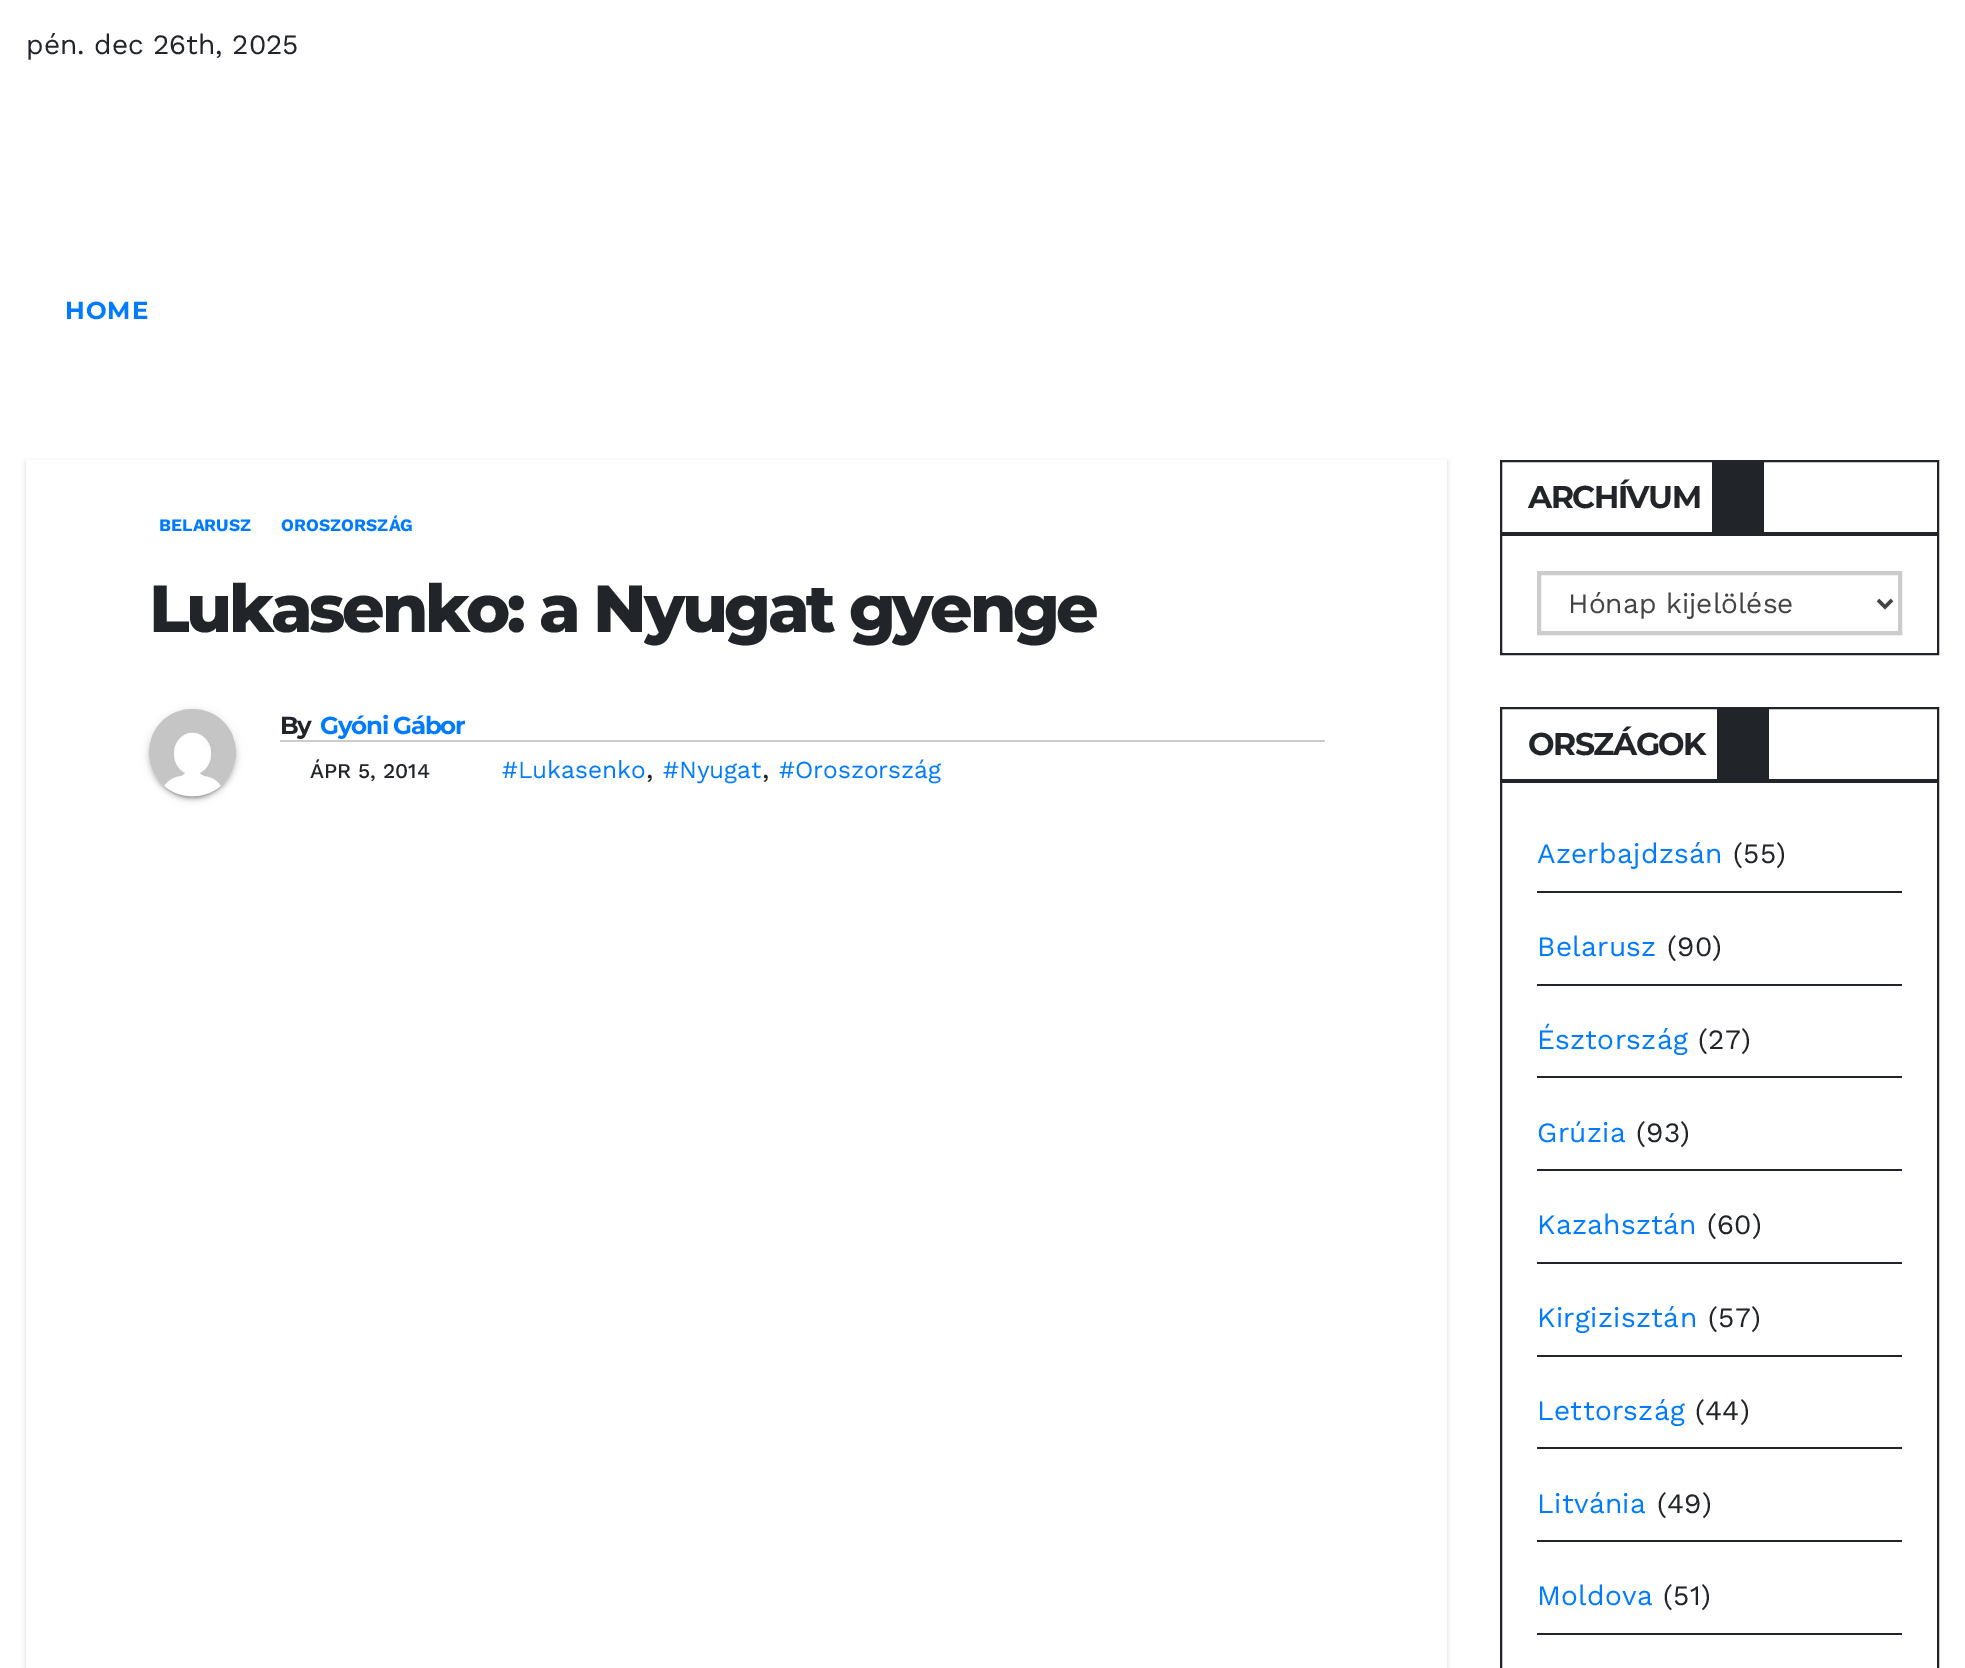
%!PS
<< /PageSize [1965 1668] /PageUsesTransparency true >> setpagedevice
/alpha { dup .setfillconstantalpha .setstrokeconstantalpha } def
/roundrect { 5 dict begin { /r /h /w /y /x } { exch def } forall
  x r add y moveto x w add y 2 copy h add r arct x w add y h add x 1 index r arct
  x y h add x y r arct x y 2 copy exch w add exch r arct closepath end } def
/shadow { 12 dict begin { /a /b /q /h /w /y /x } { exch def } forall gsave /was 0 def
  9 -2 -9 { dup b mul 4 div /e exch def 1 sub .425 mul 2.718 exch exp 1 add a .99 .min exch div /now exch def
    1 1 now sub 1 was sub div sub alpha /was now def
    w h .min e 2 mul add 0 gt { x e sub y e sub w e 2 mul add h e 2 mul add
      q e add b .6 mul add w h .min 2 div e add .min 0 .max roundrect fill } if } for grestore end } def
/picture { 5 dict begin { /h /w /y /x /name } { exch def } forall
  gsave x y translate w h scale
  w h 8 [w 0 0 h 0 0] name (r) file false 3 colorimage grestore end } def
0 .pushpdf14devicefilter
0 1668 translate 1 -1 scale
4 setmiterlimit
1 setgray
0 0 1965 1668 rectfill
/WorkSans-Regular [28 0 0 -28 0 0] selectfont
0.129 0.145 0.161 setrgbcolor
26 54 moveto (pén. dec 26th, 2025) show
/Montserrat-Bold [24.5 0 0 -24.5 0 0] selectfont
0 0.482 1 setrgbcolor
65 319 moveto 1 0 (HOME) ashow
0 setgray
26 462 1421 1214 0 2.5 0.15 shadow
1 setgray
26 460 1421 1208 rectfill
/WorkSans-Bold [17.5 0 0 -17.5 0 0] selectfont
0 0.482 1 setrgbcolor
159 531 moveto (BELARUSZ) show
281 531 moveto (OROSZORSZÁG) show
/Montserrat-ExtraBold [66.5 0 0 -66.5 0 0] selectfont
0.129 0.145 0.161 setrgbcolor
149 632 moveto -3.3 0 (Lukasenko: a Nyugat gyenge) ashow
0 setgray
149 711 87 87 43.5 4.5 0.12 shadow
152 718 81 80 40 1 0.2 shadow
149 712 87 88 43.5 2 0.14 shadow
(img1.rgb) 149 709 87 88 picture
0.8 setgray
280 740 1045 2 rectfill
/Montserrat-Bold [24.5 0 0 -24.5 0 0] selectfont
0.129 0.145 0.161 setrgbcolor
280 734 moveto -1.25 0 (By) ashow
0 0.482 1 setrgbcolor
320 734 moveto -1.25 0 (Gyóni Gábor) ashow
/WorkSans-Medium [21 0 0 -21 0 0] selectfont
0.129 0.145 0.161 setrgbcolor
310 778 moveto (ÁPR 5, 2014) show
/WorkSans-Regular [24.5 0 0 -24.5 0 0] selectfont
0 0.482 1 setrgbcolor
502 778 moveto (#Lukasenko) show
/WorkSans-Regular [28 0 0 -28 0 0] selectfont
0.129 0.145 0.161 setrgbcolor
646 778 moveto (,) show
/WorkSans-Regular [24.5 0 0 -24.5 0 0] selectfont
0 0.482 1 setrgbcolor
663 778 moveto (#Nyugat) show
/WorkSans-Regular [28 0 0 -28 0 0] selectfont
0.129 0.145 0.161 setrgbcolor
762 778 moveto (,) show
/WorkSans-Regular [24.5 0 0 -24.5 0 0] selectfont
0 0.482 1 setrgbcolor
779 778 moveto (#Oroszország) show
0.129 0.145 0.161 setrgbcolor
2 setlinewidth
1501 461 437 193 rectstroke
1502 532 435 4 rectfill
/Montserrat-Bold [31.5 0 0 -31.5 0 0] selectfont
1528 508 moveto -1.5 0 (ARCHÍVUM) ashow
1712 462 52 70 rectfill
0.8 setgray
4 setlinewidth
1539 573 361 60 rectstroke
0.267 setgray
3.5 setlinewidth
newpath 1878 600 moveto 1885 607 lineto 1892 600 lineto stroke
/WorkSans-Regular [28 0 0 -28 0 0] selectfont
1568 613 moveto (Hónap kijelölése) show
0.129 0.145 0.161 setrgbcolor
2 setlinewidth
1501 708 437 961 rectstroke
1502 779 435 4 rectfill
/Montserrat-Bold [31.5 0 0 -31.5 0 0] selectfont
1528 755 moveto -1.5 0 (ORSZÁGOK) ashow
1717 709 52 70 rectfill
1537 891 365 2 rectfill
/WorkSans-Regular [28 0 0 -28 0 0] selectfont
0 0.482 1 setrgbcolor
1537 863 moveto 0.3 0 (Azerbajdzsán) ashow
0.129 0.145 0.161 setrgbcolor
1733 863 moveto 0.3 0 (\(55\)) ashow
1537 984 365 2 rectfill
0 0.482 1 setrgbcolor
1537 956 moveto 0.3 0 (Belarusz) ashow
0.129 0.145 0.161 setrgbcolor
1667 956 moveto 0.3 0 (\(90\)) ashow
1537 1076 365 2 rectfill
0 0.482 1 setrgbcolor
1537 1049 moveto 0.3 0 (Észtország) ashow
0.129 0.145 0.161 setrgbcolor
1698 1049 moveto 0.3 0 (\(27\)) ashow
1537 1169 365 2 rectfill
0 0.482 1 setrgbcolor
1537 1142 moveto 0.3 0 (Grúzia) ashow
0.129 0.145 0.161 setrgbcolor
1636 1142 moveto 0.3 0 (\(93\)) ashow
1537 1262 365 2 rectfill
0 0.482 1 setrgbcolor
1537 1234 moveto 0.3 0 (Kazahsztán) ashow
0.129 0.145 0.161 setrgbcolor
1707 1234 moveto 0.3 0 (\(60\)) ashow
1537 1355 365 2 rectfill
0 0.482 1 setrgbcolor
1537 1327 moveto 0.3 0 (Kirgizisztán) ashow
0.129 0.145 0.161 setrgbcolor
1708 1327 moveto 0.3 0 (\(57\)) ashow
1537 1447 365 2 rectfill
0 0.482 1 setrgbcolor
1537 1420 moveto 0.3 0 (Lettország) ashow
0.129 0.145 0.161 setrgbcolor
1695 1420 moveto 0.3 0 (\(44\)) ashow
1537 1540 365 2 rectfill
0 0.482 1 setrgbcolor
1537 1513 moveto 0.3 0 (Litvánia) ashow
0.129 0.145 0.161 setrgbcolor
1657 1513 moveto 0.3 0 (\(49\)) ashow
1537 1633 365 2 rectfill
0 0.482 1 setrgbcolor
1537 1605 moveto 0.3 0 (Moldova) ashow
0.129 0.145 0.161 setrgbcolor
1663 1605 moveto 0.3 0 (\(51\)) ashow
.poppdf14devicefilter showpage
